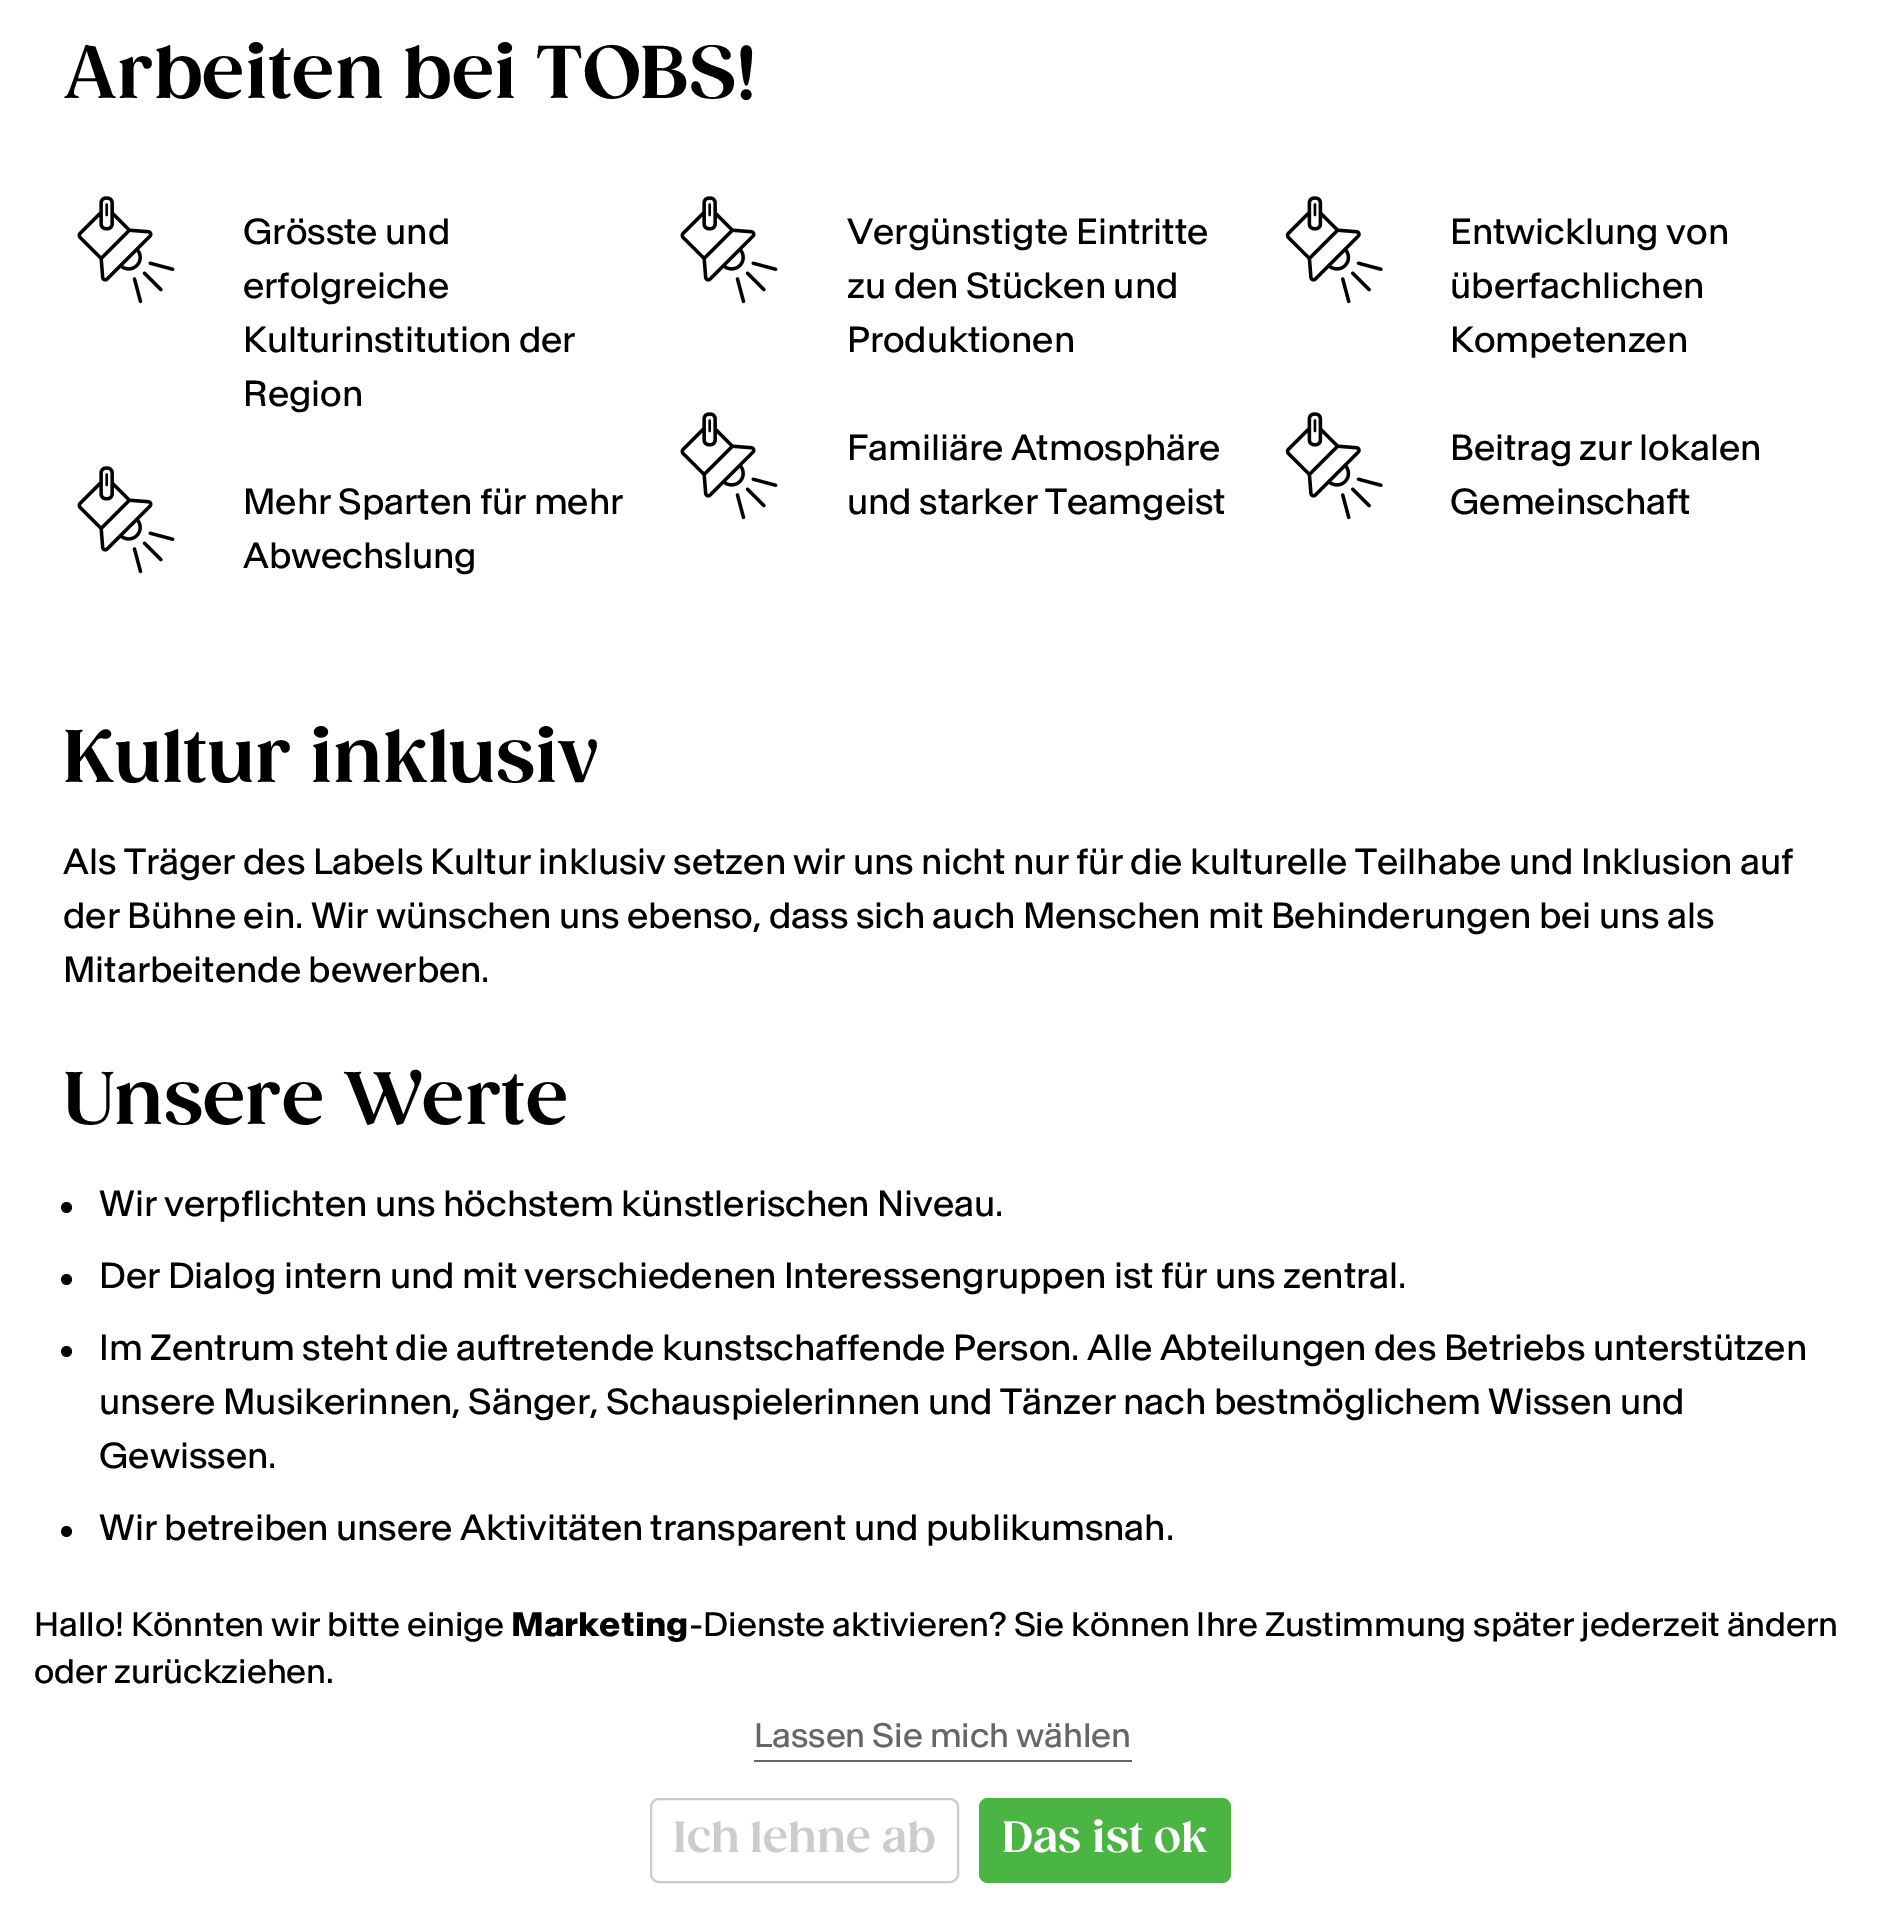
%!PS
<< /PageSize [1901 1915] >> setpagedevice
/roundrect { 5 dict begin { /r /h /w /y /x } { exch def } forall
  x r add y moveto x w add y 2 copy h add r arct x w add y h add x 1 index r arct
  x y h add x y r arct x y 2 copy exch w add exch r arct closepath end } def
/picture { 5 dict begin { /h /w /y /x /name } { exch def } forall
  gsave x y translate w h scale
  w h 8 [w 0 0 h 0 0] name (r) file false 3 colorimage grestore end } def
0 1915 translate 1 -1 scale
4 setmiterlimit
1 setgray
0 0 1901 1915 rectfill
/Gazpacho-Bold [72 0 0 -72 0 0] selectfont
0 setgray
63 98 moveto (Arbeiten bei TOBS!) show
(img1.rgb) 77 196 98 108 picture
/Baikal-Regular [36 0 0 -36 0 0] selectfont
243 244 moveto (Grösste und) show
243 298 moveto (erfolgreiche) show
243 352 moveto (Kulturinstitution der) show
243 406 moveto (Region) show
(img1.rgb) 77 466 98 108 picture
243 514 moveto (Mehr Sparten für mehr) show
243 568 moveto (Abwechslung) show
(img1.rgb) 680 196 98 108 picture
847 244 moveto (Vergünstigte Eintritte) show
847 298 moveto (zu den Stücken und) show
847 352 moveto (Produktionen) show
(img1.rgb) 680 412 98 108 picture
847 460 moveto (Familiäre Atmosphäre) show
847 514 moveto (und starker Teamgeist) show
(img2.rgb) 1285 196 98 108 picture
1450 244 moveto (Entwicklung von) show
1450 298 moveto (überfachlichen) show
1450 352 moveto (Kompetenzen) show
(img2.rgb) 1285 412 98 108 picture
1450 460 moveto (Beitrag zur lokalen) show
1450 514 moveto (Gemeinschaft) show
/Gazpacho-Bold [72 0 0 -72 0 0] selectfont
63 782 moveto (Kultur inklusiv) show
/Baikal-Regular [36 0 0 -36 0 0] selectfont
63 874 moveto (Als Träger des Labels Kultur inklusiv setzen wir uns nicht nur für die kulturelle Teilhabe und Inklusion auf) show
63 928 moveto (der Bühne ein. Wir wünschen uns ebenso, dass sich auch Menschen mit Behinderungen bei uns als) show
63 982 moveto (Mitarbeitende bewerben.) show
/Gazpacho-Bold [72 0 0 -72 0 0] selectfont
63 1124 moveto (Unsere Werte) show
newpath 66.5 1207.5 5.5 0 360 arc closepath fill
/Baikal-Regular [36 0 0 -36 0 0] selectfont
99 1216 moveto (Wir verpflichten uns höchstem künstlerischen Niveau.) show
newpath 66.5 1279.5 5.5 0 360 arc closepath fill
99 1288 moveto (Der Dialog intern und mit verschiedenen Interessengruppen ist für uns zentral.) show
newpath 66.5 1351.5 5.5 0 360 arc closepath fill
99 1360 moveto (Im Zentrum steht die auftretende kunstschaffende Person. Alle Abteilungen des Betriebs unterstützen) show
99 1414 moveto (unsere Musikerinnen, Sänger, Schauspielerinnen und Tänzer nach bestmöglichem Wissen und) show
99 1468 moveto (Gewissen.) show
newpath 66.5 1531.5 5.5 0 360 arc closepath fill
99 1540 moveto (Wir betreiben unsere Aktivitäten transparent und publikumsnah.) show
/Baikal-Regular [33.75 0 0 -33.75 0 0] selectfont
34 1636 moveto (Hallo! Könnten wir bitte einige) show
/Baikal-Bold [33.75 0 0 -33.75 0 0] selectfont
511 1636 moveto (Marketing) show
/Baikal-Regular [33.75 0 0 -33.75 0 0] selectfont
689 1636 moveto (-Dienste aktivieren? Sie können Ihre Zustimmung später jederzeit ändern) show
34 1683 moveto (oder zurückziehen.) show
0.4 setgray
754 1760 378 2 rectfill
754 1747 moveto (Lassen Sie mich wählen) show
0.8 setgray
2 setlinewidth
651 1799 307 83 8 roundrect stroke
/Gazpacho-Bold [42.25 0 0 -42.25 0 0] selectfont
673 1852 moveto (Ich lehne ab) show
0.294 0.71 0.263 setrgbcolor
979 1798 252 85 9 roundrect fill
1 setgray
1002 1852 moveto (Das ist ok) show
showpage
